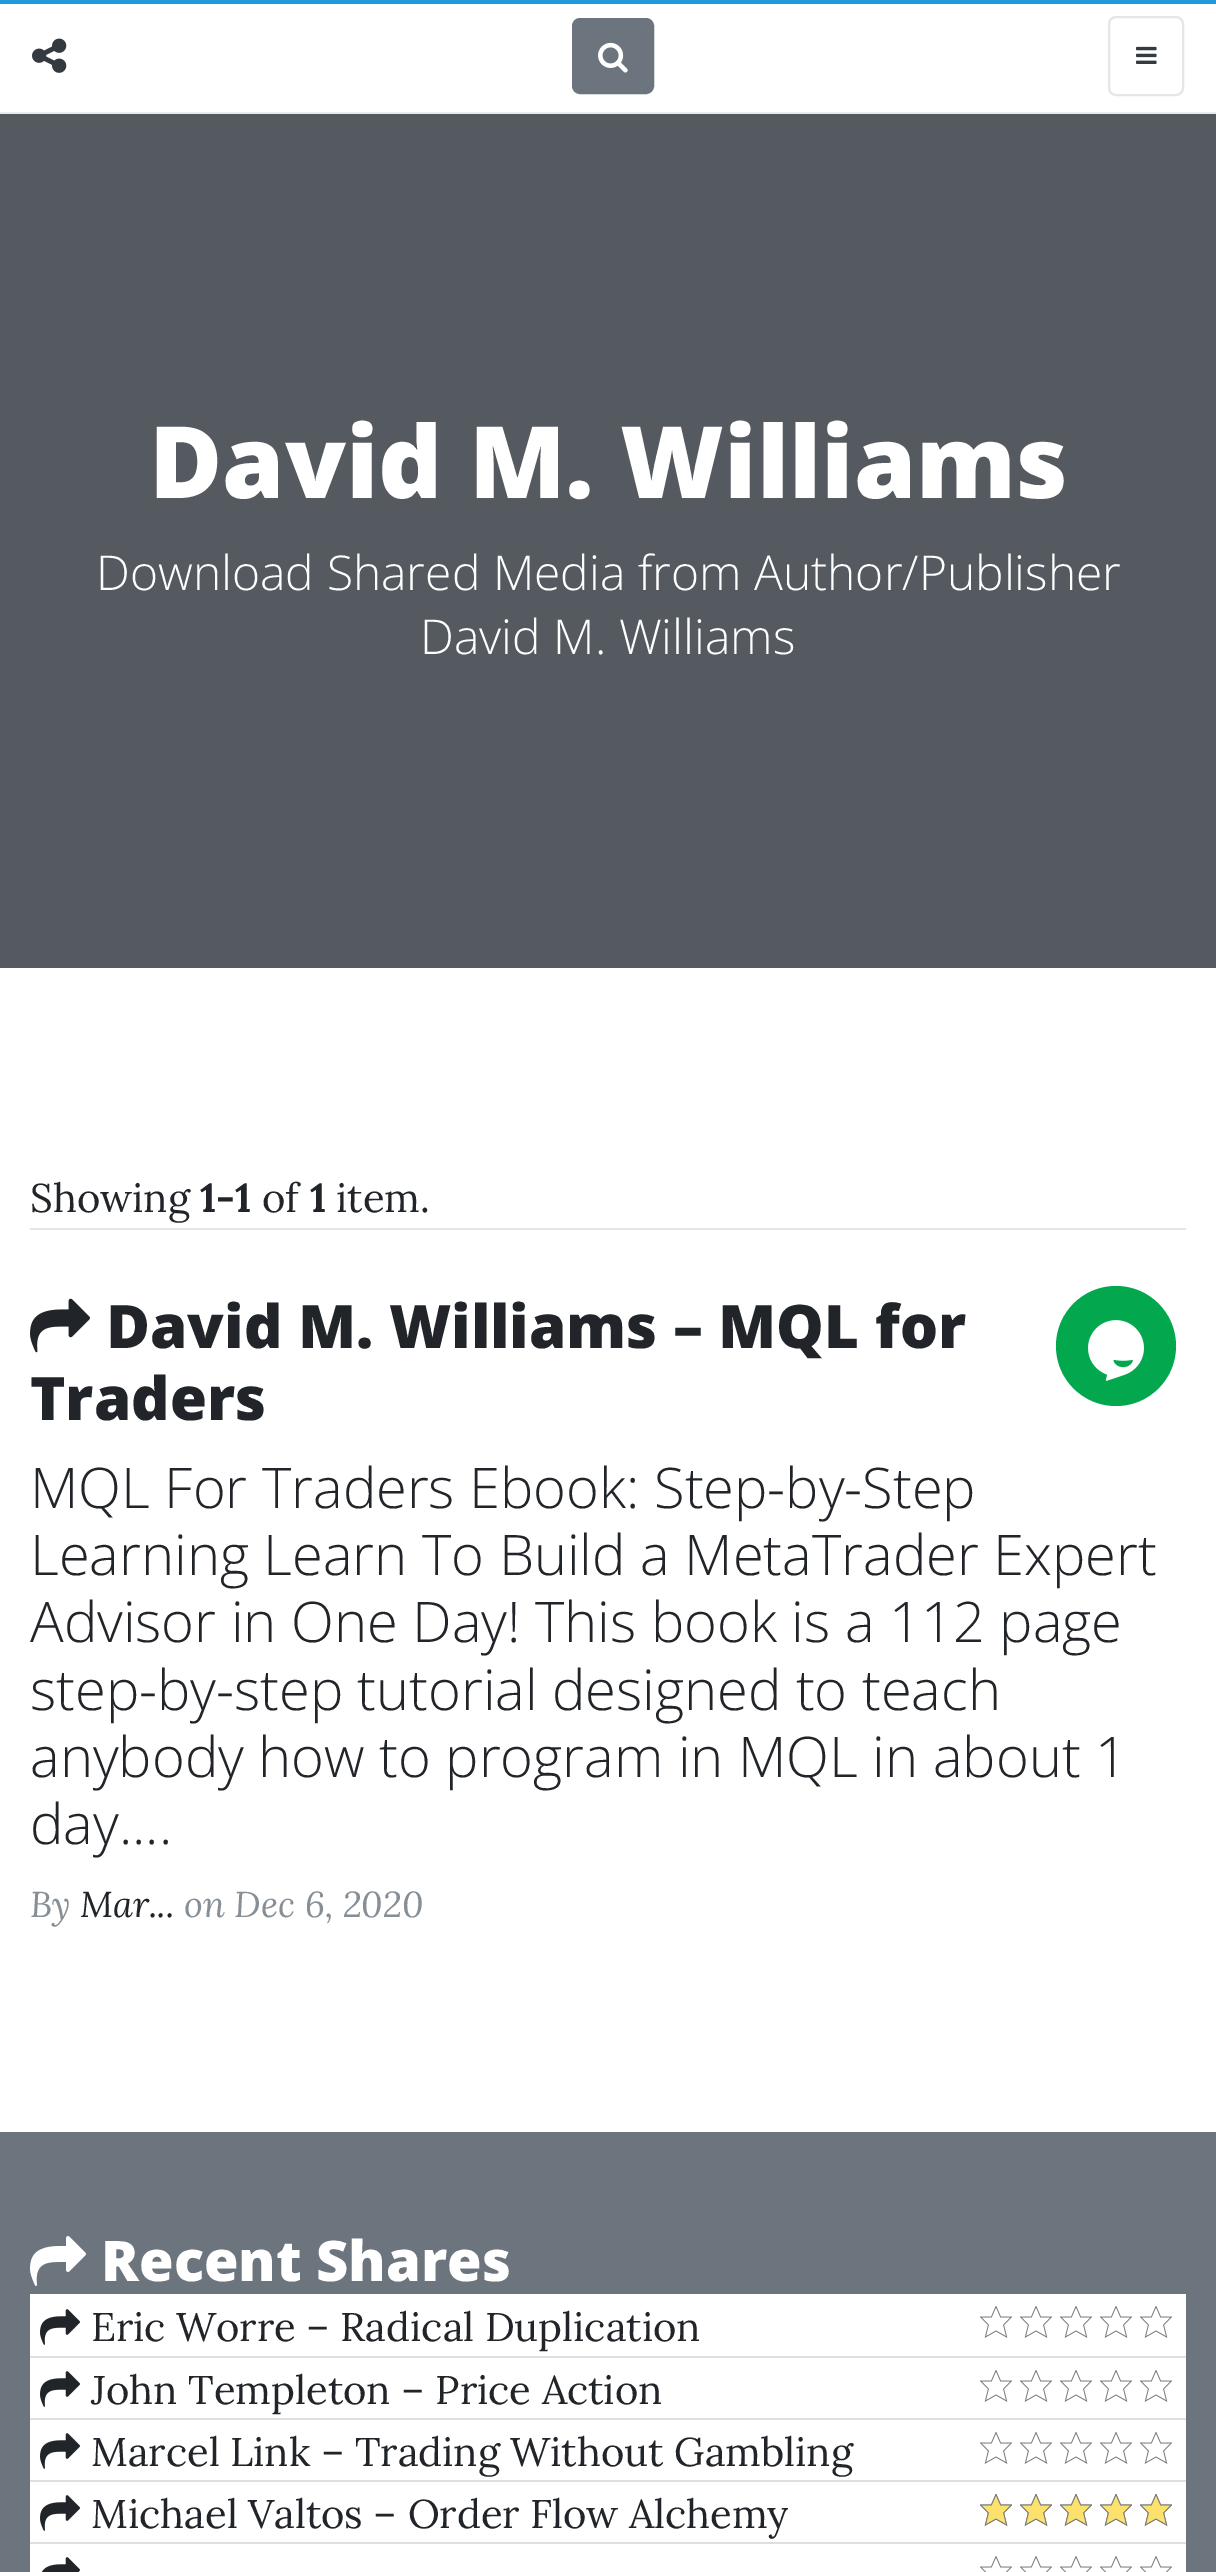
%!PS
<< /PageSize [1216 2572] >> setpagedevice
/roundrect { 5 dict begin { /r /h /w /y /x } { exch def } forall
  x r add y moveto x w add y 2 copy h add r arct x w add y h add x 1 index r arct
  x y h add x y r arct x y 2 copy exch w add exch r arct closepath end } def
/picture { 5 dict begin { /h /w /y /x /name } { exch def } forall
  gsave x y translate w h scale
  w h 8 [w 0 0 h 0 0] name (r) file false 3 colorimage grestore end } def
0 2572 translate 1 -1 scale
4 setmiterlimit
1 setgray
0 0 1216 2572 rectfill
0.133 0.6 0.867 setrgbcolor
0 0 1216 4 rectfill
0.914 0.925 0.937 setrgbcolor
0 112 1216 2 rectfill
(img1.rgb) 32 38 35 35 picture
0.424 0.459 0.49 setrgbcolor
573 19 80 74 7 roundrect gsave fill grestore
2 setlinewidth
stroke
(img2.rgb) 598 42 30 31 picture
0.902 setgray
1109 17 74 78 7 roundrect stroke
(img3.rgb) 1136 46 21 18 picture
0.329 0.353 0.373 setrgbcolor
0 114 1216 854 rectfill
/OpenSans-ExtraBold [100 0 0 -100 0 0] selectfont
1 setgray
149 498 moveto (David M. Williams) show
/OpenSans-Light [48 0 0 -48 0 0] selectfont
96 590 moveto (Download Shared Media from Author/Publisher) show
420 654 moveto (David M. Williams) show
/Lora-Regular [40 0 0 -40 0 0] selectfont
0.129 0.145 0.161 setrgbcolor
30 1212 moveto (Showing) show
/Lora-Bold [40 0 0 -40 0 0] selectfont
200 1212 moveto (1-1) show
/Lora-Regular [40 0 0 -40 0 0] selectfont
262 1212 moveto (of) show
/Lora-Bold [40 0 0 -40 0 0] selectfont
310 1212 moveto (1) show
/Lora-Regular [40 0 0 -40 0 0] selectfont
336 1212 moveto (item.) show
0.902 setgray
30 1228 1156 2 rectfill
(img4.rgb) 30 1298 60 55 picture
/OpenSans-ExtraBold [60 0 0 -60 0 0] selectfont
0.129 0.145 0.161 setrgbcolor
106 1348 moveto (David M. Williams – MQL for) show
30 1420 moveto (Traders) show
/OpenSans-Light [56 0 0 -56 0 0] selectfont
30 1508 moveto (MQL For Traders Ebook: Step-by-Step) show
30 1575 moveto (Learning Learn To Build a MetaTrader Expert) show
30 1642 moveto (Advisor in One Day! This book is a 112 page) show
30 1710 moveto (step-by-step tutorial designed to teach) show
30 1777 moveto (anybody how to program in MQL in about 1) show
30 1844 moveto (day....) show
/Lora-Italic [36 0 0 -36 0 0] selectfont
0.525 0.557 0.588 setrgbcolor
30 1917 moveto (By) show
0.129 0.145 0.161 setrgbcolor
80 1917 moveto (Mar...) show
0.525 0.557 0.588 setrgbcolor
184 1917 moveto (on Dec 6, 2020) show
0.012 0.659 0.306 setrgbcolor
newpath 1116 1346 60 0 360 arc closepath fill
(img5.rgb) 1088 1320 56 61 picture
0.424 0.459 0.49 setrgbcolor
0 2132 1216 440 rectfill
(img6.rgb) 30 2236 56 50 picture
/OpenSans-ExtraBold [56 0 0 -56 0 0] selectfont
1 setgray
101 2281 moveto (Recent Shares) show
30 2294 1156 62 rectfill
(img7.rgb) 40 2309 40 36 picture
/Lora-Regular [40 0 0 -40 0 0] selectfont
0.129 0.145 0.161 setrgbcolor
91 2341 moveto (Eric Worre – Radical Duplication) show
(img8.rgb) 980 2306 32 32 picture
(img8.rgb) 1020 2306 32 32 picture
(img8.rgb) 1060 2306 32 32 picture
(img8.rgb) 1100 2306 32 32 picture
(img8.rgb) 1140 2306 32 32 picture
1 setgray
30 2358 1156 60 rectfill
0.875 setgray
30 2356 1156 2 rectfill
(img7.rgb) 40 2371 40 36 picture
0.129 0.145 0.161 setrgbcolor
91 2404 moveto (John Templeton – Price Action) show
(img8.rgb) 980 2370 32 32 picture
(img8.rgb) 1020 2370 32 32 picture
(img8.rgb) 1060 2370 32 32 picture
(img8.rgb) 1100 2370 32 32 picture
(img8.rgb) 1140 2370 32 32 picture
1 setgray
30 2420 1156 60 rectfill
0.875 setgray
30 2418 1156 2 rectfill
(img7.rgb) 40 2433 40 36 picture
0.129 0.145 0.161 setrgbcolor
91 2466 moveto (Marcel Link – Trading Without Gambling) show
(img8.rgb) 980 2432 32 32 picture
(img8.rgb) 1020 2432 32 32 picture
(img8.rgb) 1060 2432 32 32 picture
(img8.rgb) 1100 2432 32 32 picture
(img8.rgb) 1140 2432 32 32 picture
1 setgray
30 2482 1156 60 rectfill
0.875 setgray
30 2480 1156 2 rectfill
(img7.rgb) 40 2495 40 36 picture
0.129 0.145 0.161 setrgbcolor
91 2528 moveto (Michael Valtos – Order Flow Alchemy) show
(img8.rgb) 980 2494 32 32 picture
(img8.rgb) 1020 2494 32 32 picture
(img8.rgb) 1060 2494 32 32 picture
(img8.rgb) 1100 2494 32 32 picture
(img8.rgb) 1140 2494 32 32 picture
(img9.rgb) 980 2494 32 32 picture
(img9.rgb) 1020 2494 32 32 picture
(img9.rgb) 1060 2494 32 32 picture
(img9.rgb) 1100 2494 32 32 picture
(img9.rgb) 1140 2494 32 32 picture
1 setgray
30 2544 1156 28 rectfill
0.875 setgray
30 2542 1156 2 rectfill
(img10.rgb) 41 2557 39 15 picture
(img11.rgb) 980 2556 32 16 picture
(img11.rgb) 1020 2556 32 16 picture
(img11.rgb) 1060 2556 32 16 picture
(img11.rgb) 1100 2556 32 16 picture
(img11.rgb) 1140 2556 32 16 picture
showpage
